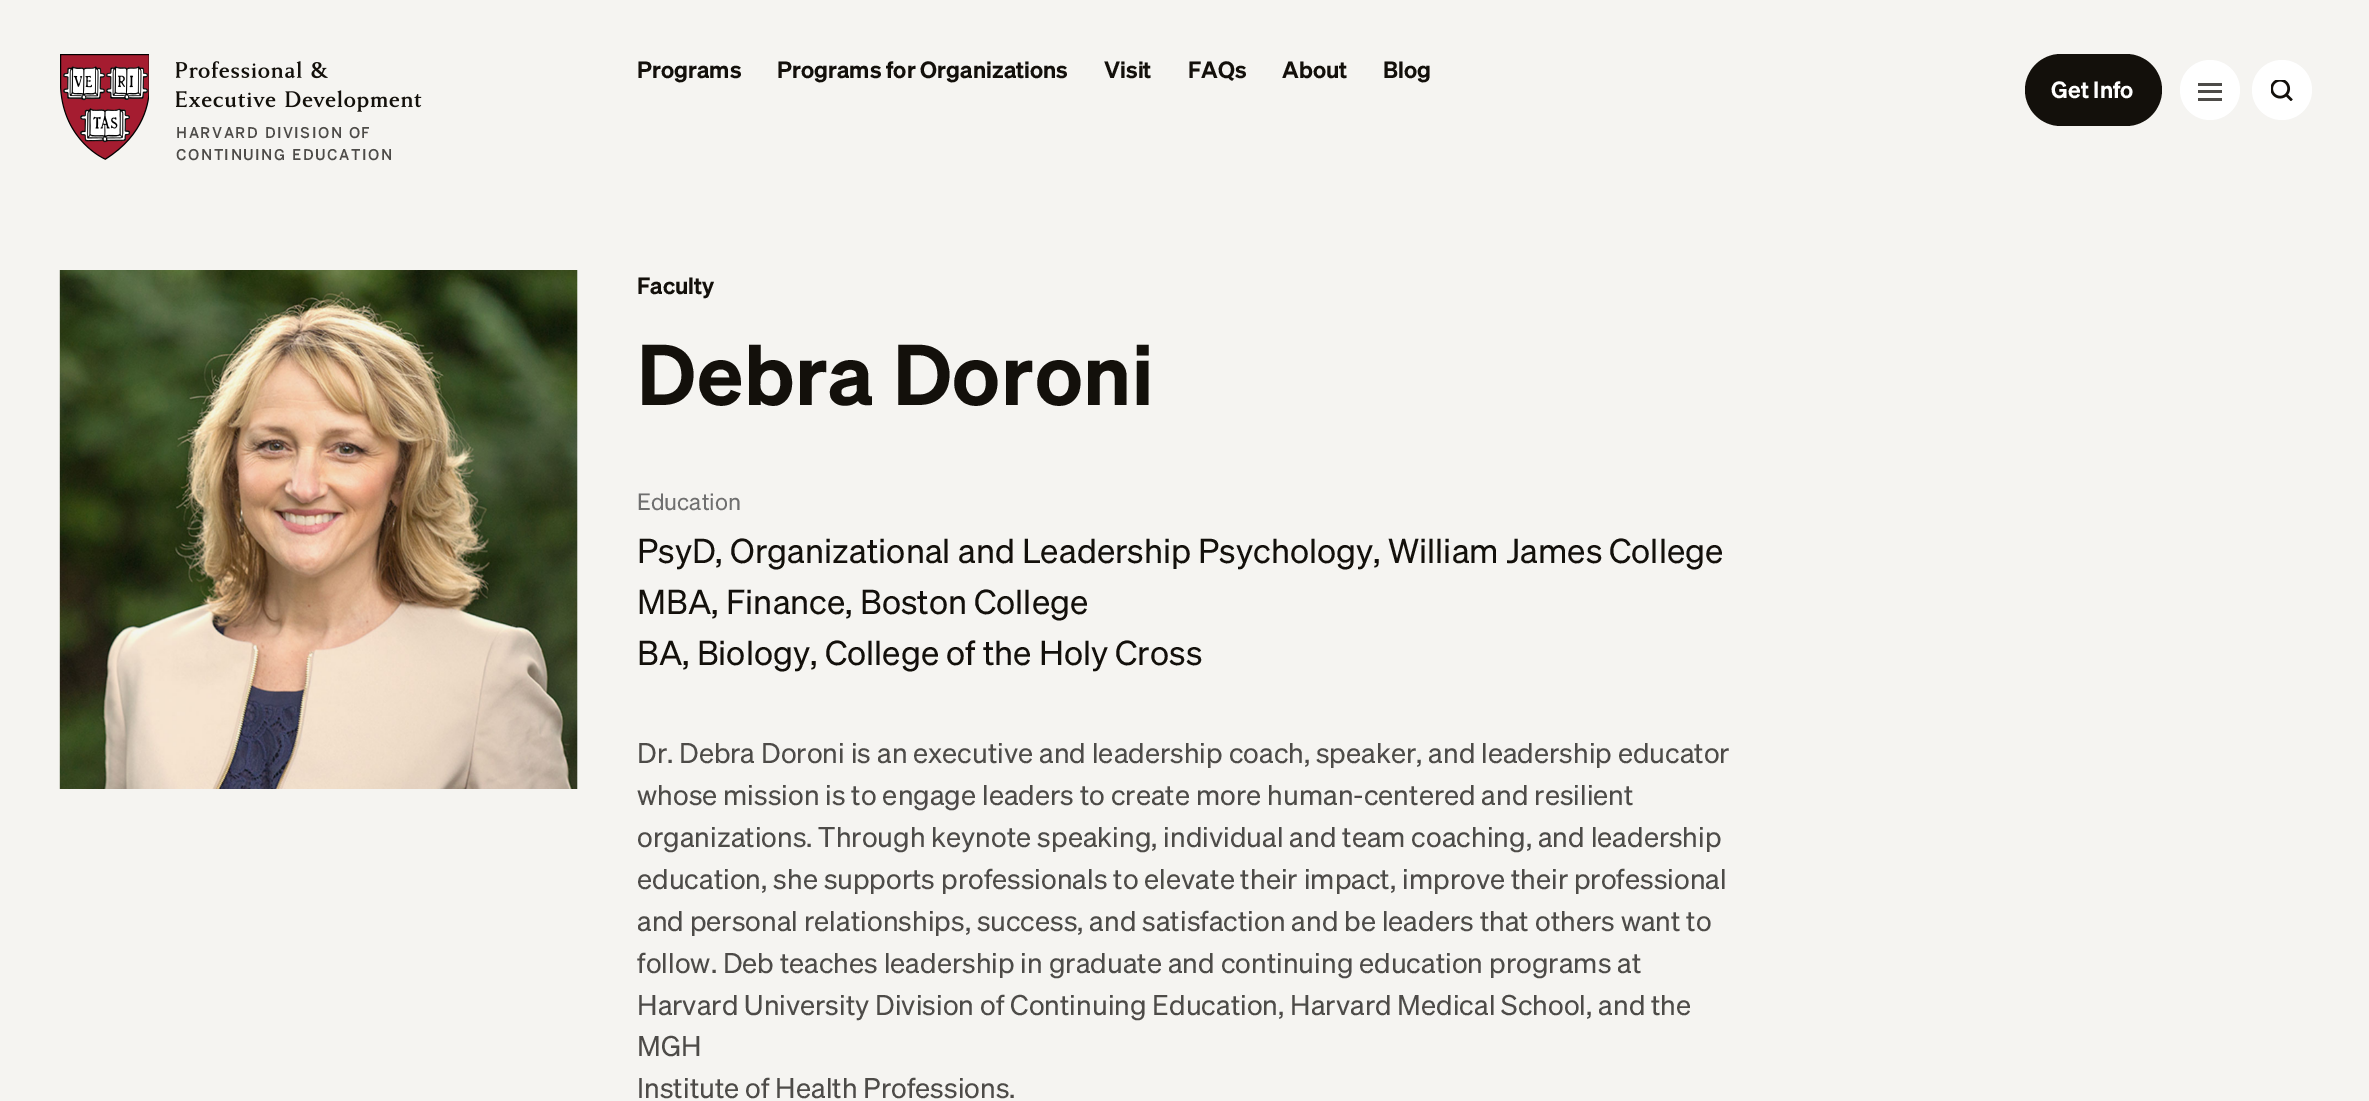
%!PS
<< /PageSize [2369 1101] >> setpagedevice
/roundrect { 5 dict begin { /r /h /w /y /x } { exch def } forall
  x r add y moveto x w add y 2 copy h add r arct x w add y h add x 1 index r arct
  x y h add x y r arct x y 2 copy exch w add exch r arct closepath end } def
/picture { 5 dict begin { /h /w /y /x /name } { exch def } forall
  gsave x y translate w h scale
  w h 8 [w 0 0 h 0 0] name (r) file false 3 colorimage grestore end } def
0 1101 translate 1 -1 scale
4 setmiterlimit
0.961 0.957 0.945 setrgbcolor
0 0 2369 1101 rectfill
/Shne-SemiBold [23.1 0 0 -23.1 0 0] selectfont
0.075 0.063 0.043 setrgbcolor
637 78 moveto (Programs) show
777 78 moveto (Programs for Organizations) show
1104 78 moveto (Visit) show
1188 78 moveto (FAQs) show
1282 78 moveto (About) show
1383 78 moveto (Blog) show
2025 54 137 72 36 roundrect fill
1 setgray
2051 98 moveto (Get Info) show
newpath 2210 90 30 0 360 arc closepath fill
0.302 0.294 0.282 setrgbcolor
2198 90 24 3 rectfill
2198 83 24 3 rectfill
2198 98 24 3 rectfill
1 setgray
newpath 2282 90 30 0 360 arc closepath fill
(img1.rgb) 2271 80 22 21 picture
(img2.rgb) 60 54 89 106 picture
(img3.rgb) 176 61 246 51 picture
/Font-Medium [14.75 0 0 -14.75 0 0] selectfont
0.302 0.294 0.282 setrgbcolor
176 138 moveto 1.5 0 (HARVARD DIVISION OF) ashow
176 160 moveto 1.5 0 (CONTINUING EDUCATION) ashow
1 setgray
577 270 1 519 rectfill
(img4.rgb) 59 270 519 519 picture
/Shne-SemiBold [23.1 0 0 -23.1 0 0] selectfont
0.075 0.063 0.043 setrgbcolor
637 294 moveto (Faculty) show
/Shne-SemiBold [84 0 0 -84 0 0] selectfont
637 405 moveto 0.8 0 (Debra Doroni) ashow
/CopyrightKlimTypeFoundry-Regular [23.1 0 0 -23.1 0 0] selectfont
0.435 setgray
637 510 moveto (Education) show
/CopyrightKlimTypeFoundry-Regular [33.85 0 0 -33.85 0 0] selectfont
0.075 0.063 0.043 setrgbcolor
637 563 moveto (PsyD, Organizational and Leadership Psychology, William James College) show
637 614 moveto (MBA, Finance, Boston College) show
637 665 moveto (BA, Biology, College of the Holy Cross) show
/CopyrightKlimTypeFoundry-Regular [27.9 0 0 -27.9 0 0] selectfont
0.302 0.294 0.282 setrgbcolor
637 763 moveto (Dr. Debra Doroni is an executive and leadership coach, speaker, and leadership educator) show
637 805 moveto (whose mission is to engage leaders to create more human-centered and resilient) show
637 847 moveto (organizations. Through keynote speaking, individual and team coaching, and leadership) show
637 889 moveto (education, she supports professionals to elevate their impact, improve their professional) show
637 931 moveto (and personal relationships, success, and satisfaction and be leaders that others want to) show
637 973 moveto (follow. Deb teaches leadership in graduate and continuing education programs at) show
637 1015 moveto (Harvard University Division of Continuing Education, Harvard Medical School, and the) show
637 1056 moveto (MGH) show
637 1098 moveto (Institute of Health Professions.) show
showpage
